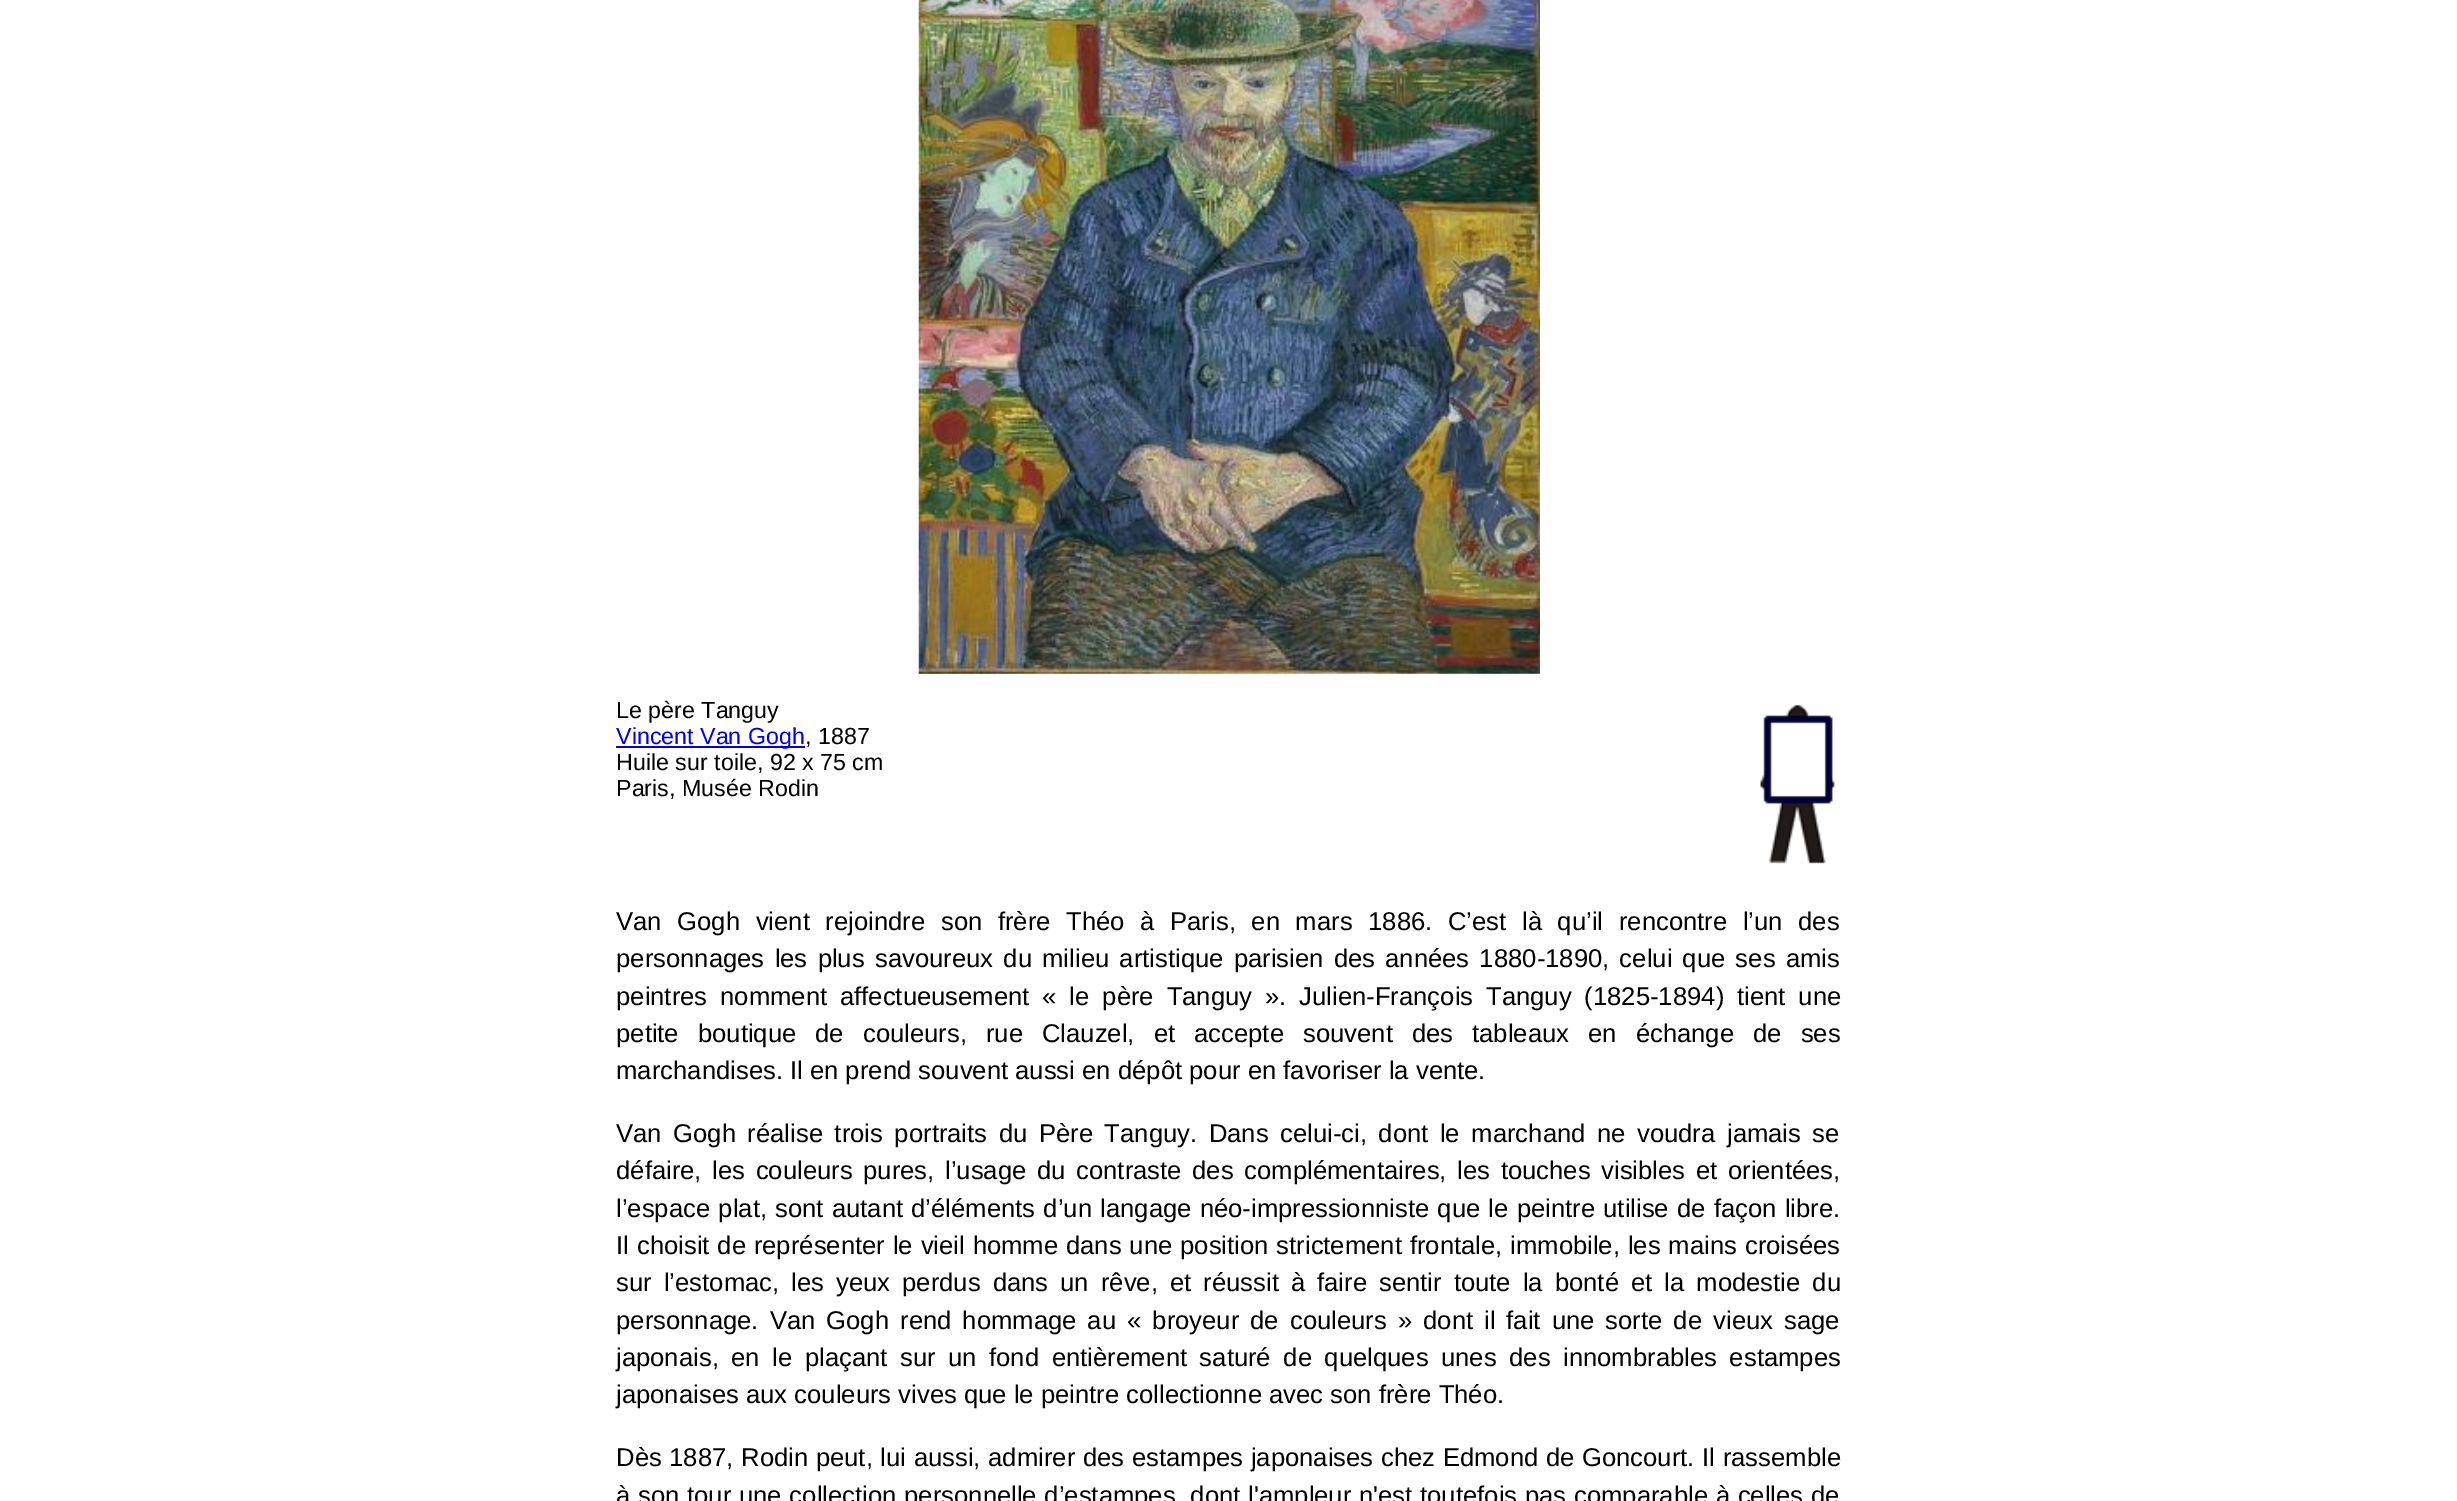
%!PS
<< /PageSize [2457 1501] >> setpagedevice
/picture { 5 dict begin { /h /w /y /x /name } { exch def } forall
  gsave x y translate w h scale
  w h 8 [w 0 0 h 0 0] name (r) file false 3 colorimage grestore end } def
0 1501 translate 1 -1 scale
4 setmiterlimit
1 setgray
0 0 2457 1501 rectfill
(img1.rgb) 918 0 622 674 picture
/LiberationSans-Regular [23.25 0 0 -23.25 0 0] selectfont
0 setgray
616 718 moveto (Le père Tanguy) show
0 0 0.933 setrgbcolor
616 746 189 2 rectfill
616 744 moveto (Vincent Van Gogh) show
0 setgray
805 744 moveto (, 1887) show
616 770 moveto (Huile sur toile, 92 x 75 cm) show
616 796 moveto (Paris, Musée Rodin) show
(img2.rgb) 1760 704 75 160 picture
/LiberationSans-Regular [25.65 0 0 -25.65 0 0] selectfont
616 930 moveto 8.5 0 32 (Van Gogh vient rejoindre son frère Théo à Paris, en mars 1886. C’est là qu’il rencontre l’un des) widthshow
616 967 moveto 3.1 0 32 (personnages les plus savoureux du milieu artistique parisien des années 1880-1890, celui que ses amis) widthshow
616 1005 moveto 5.75 0 32 (peintres nomment affectueusement « le père Tanguy ». Julien-François Tanguy \(1825-1894\) tient une) widthshow
616 1042 moveto 11.9 0 32 (petite boutique de couleurs, rue Clauzel, et accepte souvent des tableaux en échange de ses) widthshow
616 1079 moveto (marchandises. Il en prend souvent aussi en dépôt pour en favoriser la vente.) show
616 1142 moveto 4.4 0 32 (Van Gogh réalise trois portraits du Père Tanguy. Dans celui-ci, dont le marchand ne voudra jamais se) widthshow
616 1179 moveto 3.5 0 32 (défaire, les couleurs pures, l’usage du contraste des complémentaires, les touches visibles et orientées,) widthshow
616 1217 moveto 1.1 0 32 (l’espace plat, sont autant d’éléments d’un langage néo-impressionniste que le peintre utilise de façon libre.) widthshow
616 1254 moveto 0.75 0 32 (Il choisit de représenter le vieil homme dans une position strictement frontale, immobile, les mains croisées) widthshow
616 1291 moveto 4.9 0 32 (sur l’estomac, les yeux perdus dans un rêve, et réussit à faire sentir toute la bonté et la modestie du) widthshow
616 1329 moveto 3.9 0 32 (personnage. Van Gogh rend hommage au « broyeur de couleurs » dont il fait une sorte de vieux sage) widthshow
616 1366 moveto 5.4 0 32 (japonais, en le plaçant sur un fond entièrement saturé de quelques unes des innombrables estampes) widthshow
616 1403 moveto (japonaises aux couleurs vives que le peintre collectionne avec son frère Théo.) show
616 1466 moveto 0.5 0 32 (Dès 1887, Rodin peut, lui aussi, admirer des estampes japonaises chez Edmond de Goncourt. Il rassemble) widthshow
616 1504 moveto 0.6 0 32 (à son tour une collection personnelle d’estampes, dont l'ampleur n'est toutefois pas comparable à celles de) widthshow
showpage
